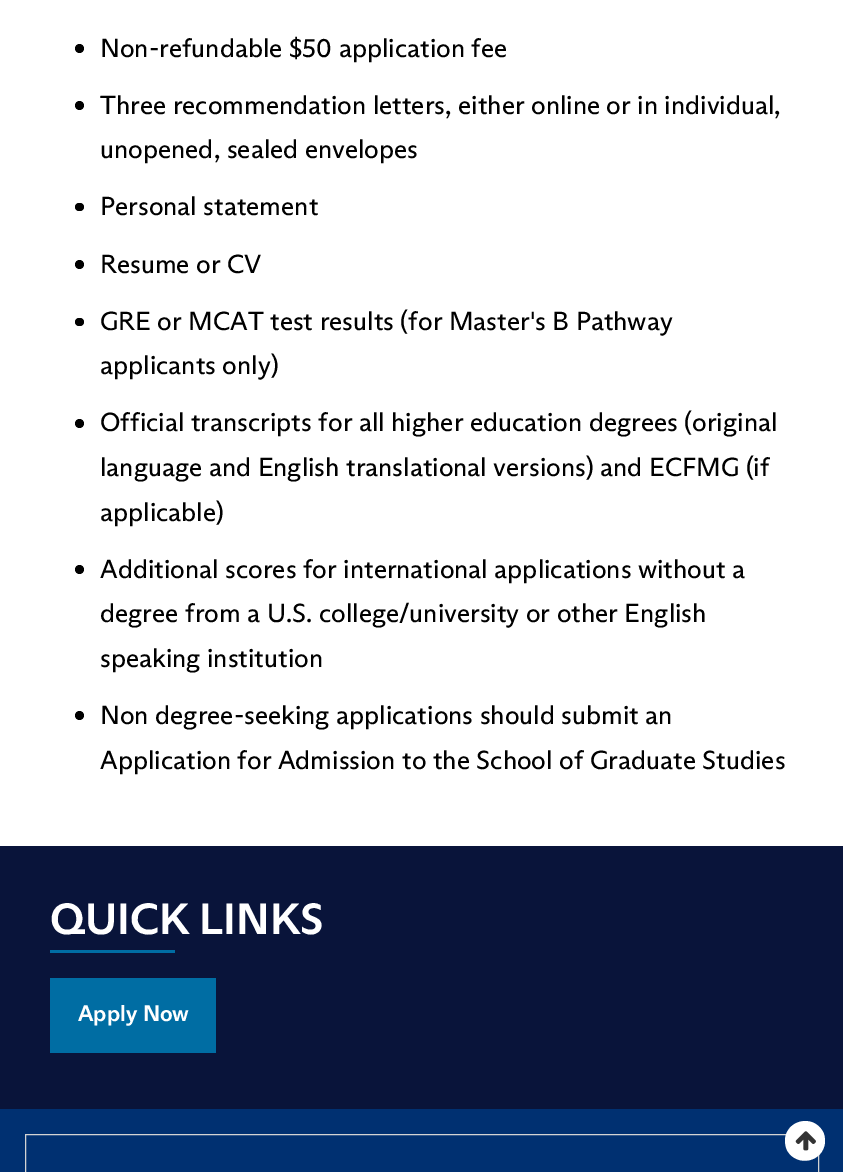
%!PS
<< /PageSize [843 1172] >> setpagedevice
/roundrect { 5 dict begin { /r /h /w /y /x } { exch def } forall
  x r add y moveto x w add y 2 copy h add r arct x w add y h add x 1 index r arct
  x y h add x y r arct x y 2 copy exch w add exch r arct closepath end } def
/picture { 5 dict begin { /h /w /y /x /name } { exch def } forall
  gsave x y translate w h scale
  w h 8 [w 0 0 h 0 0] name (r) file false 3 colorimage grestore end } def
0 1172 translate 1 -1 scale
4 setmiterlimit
1 setgray
0 0 843 1172 rectfill
0 setgray
newpath 79.5 48.5 4.5 0 360 arc closepath fill
/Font-Regular [26.25 0 0 -26.25 0 0] selectfont
100 57 moveto (Non-refundable $50 application fee) show
newpath 79.5 105.5 4.5 0 360 arc closepath fill
100 114 moveto (Three recommendation letters, either online or in individual,) show
100 158 moveto (unopened, sealed envelopes) show
75 203 9 8 4 roundrect fill
100 215 moveto (Personal statement) show
newpath 79.5 264.5 4.5 0 360 arc closepath fill
100 273 moveto (Resume or CV) show
75 318 9 8 4 roundrect fill
100 330 moveto (GRE or MCAT test results \(for Master's B Pathway) show
100 374 moveto (applicants only\)) show
newpath 79.5 423.5 4.5 0 360 arc closepath fill
100 431 moveto (Official transcripts for all higher education degrees \(original) show
100 476 moveto (language and English translational versions\) and ECFMG \(if) show
100 521 moveto (applicable\)) show
newpath 79.5 569.5 4.5 0 360 arc closepath fill
100 578 moveto (Additional scores for international applications without a) show
100 622 moveto (degree from a U.S. college/university or other English) show
100 667 moveto (speaking institution) show
newpath 79.5 715.5 4.5 0 360 arc closepath fill
100 724 moveto (Non degree-seeking applications should submit an) show
100 769 moveto (Application for Admission to the School of Graduate Studies) show
0.035 0.078 0.227 setrgbcolor
0 846 843 263 rectfill
/Font-Bold [43.75 0 0 -43.75 0 0] selectfont
1 setgray
50 934 moveto (QUICK LINKS) show
0 0.427 0.639 setrgbcolor
50 950 125 3 rectfill
50 978 166 75 rectfill
/Font-Bold [22.5 0 0 -22.5 0 0] selectfont
1 setgray
78 1021 moveto (Apply Now) show
0 0.188 0.443 setrgbcolor
0 1109 843 63 rectfill
0.827 setgray
25.5 1134.5 793 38 rectstroke
1 setgray
newpath 822.5 1131 moveto 824.5 1134 825 1138 825 1142 curveto 823.5 1162 797.5 1167.5 787.5 1151 curveto 785.5 1147.5 785 1143.5 785 1139.5 curveto 786.5 1120 812.5 1114 822.5 1131 curveto closepath fill
(img1.rgb) 795 1131 21 20 picture
showpage
